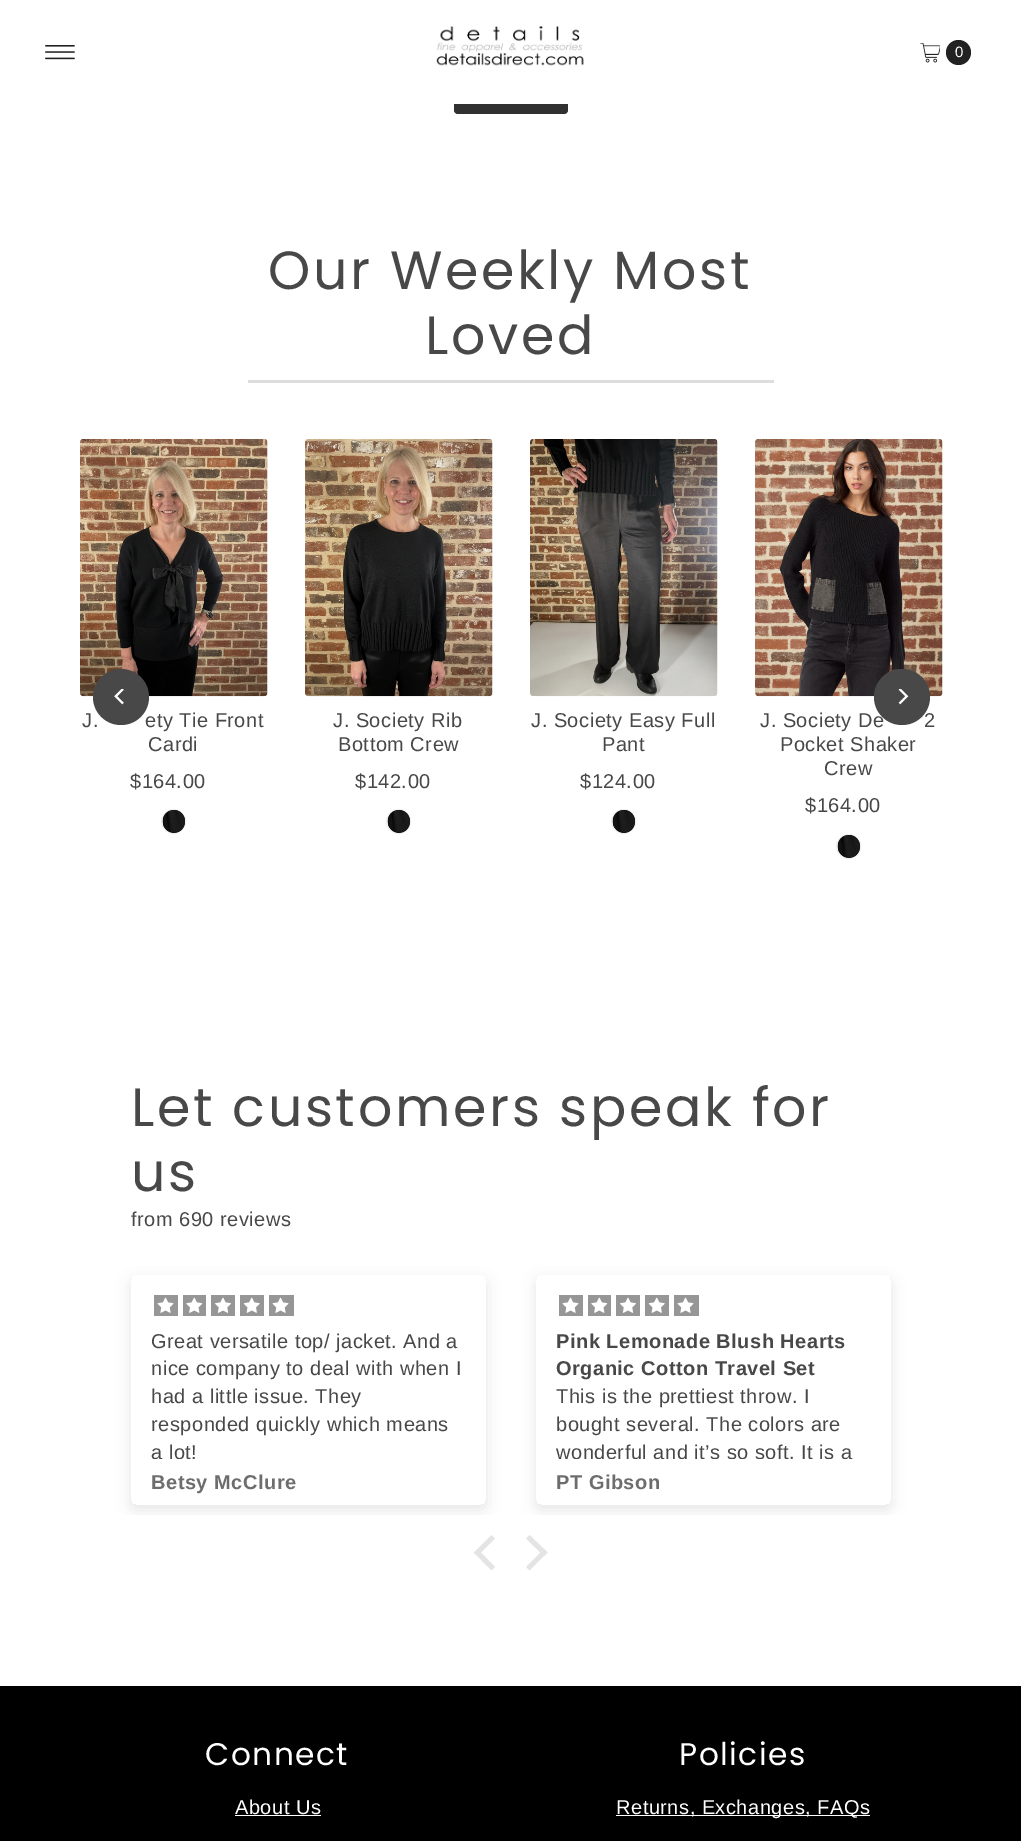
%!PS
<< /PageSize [1021 1841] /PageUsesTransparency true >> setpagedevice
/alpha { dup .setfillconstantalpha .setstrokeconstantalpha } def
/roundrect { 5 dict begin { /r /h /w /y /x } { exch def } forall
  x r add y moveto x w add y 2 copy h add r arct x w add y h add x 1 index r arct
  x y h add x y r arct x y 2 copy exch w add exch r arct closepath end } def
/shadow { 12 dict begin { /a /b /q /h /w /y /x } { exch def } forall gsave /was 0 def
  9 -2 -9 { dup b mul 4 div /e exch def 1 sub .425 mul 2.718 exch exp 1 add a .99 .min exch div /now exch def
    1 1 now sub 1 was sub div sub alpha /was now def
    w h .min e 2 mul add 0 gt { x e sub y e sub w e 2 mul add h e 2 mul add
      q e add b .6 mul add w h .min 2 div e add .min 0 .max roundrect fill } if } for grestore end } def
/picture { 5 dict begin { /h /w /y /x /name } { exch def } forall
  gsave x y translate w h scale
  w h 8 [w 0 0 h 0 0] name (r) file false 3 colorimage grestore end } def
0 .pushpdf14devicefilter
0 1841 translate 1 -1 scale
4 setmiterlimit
1 setgray
0 0 1021 1841 rectfill
0.192 setgray
454 51 114 63 4 roundrect fill
1 setgray
454 51 114 53 rectfill
(img1.rgb) 45 45 30 15 picture
(img2.rgb) 436 26 148 40 picture
(img3.rgb) 920 43 20 20 picture
0.133 setgray
newpath 958.5 52.5 12.5 0 360 arc closepath fill
/LiberationSans-Regular [15 0 0 -15 0 0] selectfont
1 setgray
955 57 moveto (0) show
0.867 setgray
248 380 526 3 rectfill
/Poppins-Regular [53.75 0 0 -53.75 0 0] selectfont
0.282 setgray
268 289 moveto 2.7 0 (Our Weekly Most) ashow
425 354 moveto 2.7 0 (Loved) ashow
(img6.rgb) 80 439 188 258 picture
newpath 121 697 28 0 360 arc closepath fill
(img4.rgb) 114 689 10 16 picture
(img10.rgb) 755 439 188 258 picture
newpath 902 697 28 0 360 arc closepath fill
(img5.rgb) 898 689 11 16 picture
/LiberationSans-Regular [20 0 0 -20 0 0] selectfont
82 727 moveto 0.5 0 (J.) ashow
145 727 moveto 0.5 0 (ety Tie Front) ashow
148 751 moveto 0.5 0 (Cardi) ashow
130 788 moveto 0.5 0 ($164.00) ashow
0.933 setgray
newpath 173.5 821.5 12 0 360 arc closepath stroke
0 setgray
163 810 22 23 11 roundrect fill
(img7.rgb) 162 810 23 23 picture
(img8.rgb) 305 439 188 258 picture
0.282 setgray
333 727 moveto 0.5 0 (J. Society Rib) ashow
338 751 moveto 0.5 0 (Bottom Crew) ashow
355 788 moveto 0.5 0 ($142.00) ashow
0.933 setgray
newpath 398.5 821.5 12 0 360 arc closepath stroke
0 setgray
388 810 22 23 11 roundrect fill
(img7.rgb) 387 810 23 23 picture
(img9.rgb) 530 439 188 258 picture
0.282 setgray
531 727 moveto 0.5 0 (J. Society Easy Full) ashow
602 751 moveto 0.5 0 (Pant) ashow
580 788 moveto 0.5 0 ($124.00) ashow
0.933 setgray
newpath 623.5 821.5 12 0 360 arc closepath stroke
0 setgray
613 810 22 23 11 roundrect fill
(img7.rgb) 612 810 23 23 picture
0.282 setgray
760 727 moveto 0.5 0 (J. Society De) ashow
924 727 moveto 0.5 0 (2) ashow
780 751 moveto 0.5 0 (Pocket Shaker) ashow
824 775 moveto 0.5 0 (Crew) ashow
805 812 moveto 0.5 0 ($164.00) ashow
0.933 setgray
newpath 848.5 846.5 12 0 360 arc closepath stroke
0 setgray
838 835 22 23 11 roundrect fill
(img7.rgb) 837 835 23 23 picture
/Poppins-Regular [53.75 0 0 -53.75 0 0] selectfont
0.282 setgray
131 1126 moveto 2.7 0 (Let customers speak for) ashow
131 1191 moveto 2.7 0 (us) ashow
/LiberationSans-Regular [20 0 0 -20 0 0] selectfont
131 1226 moveto 0.5 0 (from 690 reviews) ashow
gsave
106 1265 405 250 rectclip
newpath 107 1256 moveto 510 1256 lineto 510 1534 lineto 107 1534 lineto closepath 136 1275 moveto 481 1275 lineto 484 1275 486 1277 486 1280 curveto 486 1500 lineto 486 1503 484 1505 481 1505 curveto 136 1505 lineto 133 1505 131 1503 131 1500 curveto 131 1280 lineto 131 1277 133 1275 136 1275 curveto closepath eoclip newpath
0 setgray
131 1280 355 230 5 7.5 0.1 shadow
grestore
0.588 setgray
154 1295 24 21 rectfill
183 1295 23 21 rectfill
211 1295 24 21 rectfill
240 1295 24 21 rectfill
269 1295 25 21 rectfill
(img11.rgb) 157 1297 17 16 picture
(img12.rgb) 186 1297 17 16 picture
(img13.rgb) 215 1297 16 16 picture
(img14.rgb) 243 1297 17 16 picture
(img11.rgb) 272 1297 17 16 picture
0.282 setgray
151 1348 moveto 0.5 0 (Great versatile top/ jacket. And a) ashow
151 1375 moveto 0.5 0 (nice company to deal with when I) ashow
151 1403 moveto 0.5 0 (had a little issue. They) ashow
151 1431 moveto 0.5 0 (responded quickly which means) ashow
gsave
151 1295 315 164 rectclip
151 1459 moveto 0.5 0 (a lot!) ashow
grestore
/LiberationSans-Bold [20 0 0 -20 0 0] selectfont
0.427 setgray
151 1489 moveto 0.5 0 (Betsy McClure) ashow
gsave
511 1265 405 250 rectclip
newpath 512 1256 moveto 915 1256 lineto 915 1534 lineto 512 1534 lineto closepath 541 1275 moveto 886 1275 lineto 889 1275 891 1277 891 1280 curveto 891 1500 lineto 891 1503 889 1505 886 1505 curveto 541 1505 lineto 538 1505 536 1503 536 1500 curveto 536 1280 lineto 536 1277 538 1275 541 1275 curveto closepath eoclip newpath
0 setgray
536 1280 355 230 5 7.5 0.1 shadow
grestore
0.588 setgray
559 1295 24 21 rectfill
588 1295 23 21 rectfill
616 1295 24 21 rectfill
645 1295 24 21 rectfill
674 1295 25 21 rectfill
(img11.rgb) 562 1297 17 16 picture
(img12.rgb) 591 1297 17 16 picture
(img13.rgb) 620 1297 16 16 picture
(img14.rgb) 648 1297 17 16 picture
(img11.rgb) 677 1297 17 16 picture
0.282 setgray
556 1348 moveto 0.5 0 (Pink Lemonade Blush Hearts) ashow
556 1375 moveto 0.5 0 (Organic Cotton Travel Set) ashow
/LiberationSans-Regular [20 0 0 -20 0 0] selectfont
556 1403 moveto 0.5 0 (This is the prettiest throw. I) ashow
556 1431 moveto 0.5 0 (bought several. The colors are) ashow
gsave
556 1295 315 164 rectclip
556 1459 moveto 0.5 0 (wonderful and it’s so soft. It is a) ashow
grestore
/LiberationSans-Bold [20 0 0 -20 0 0] selectfont
0.427 setgray
556 1489 moveto 0.5 0 (PT Gibson) ashow
0.894 setgray
newpath 474 1552.5 moveto 491.5 1535 lineto 495 1538.5 lineto 477.5 1556 lineto closepath fill
newpath 474 1552.5 moveto 477.5 1549 lineto 495 1567 lineto 491.5 1570.5 lineto closepath fill
newpath 526 1538.5 moveto 529.5 1535 lineto 547.5 1552.5 lineto 544 1556 lineto closepath fill
newpath 526 1567 moveto 544 1549 lineto 547.5 1552.5 lineto 529.5 1570.5 lineto closepath fill
0 setgray
0 1686 1021 155 rectfill
/Poppins-Regular [31.25 0 0 -31.25 0 0] selectfont
1 setgray
205 1765 moveto 1.5 0 (Connect) ashow
/LiberationSans-Regular [20 0 0 -20 0 0] selectfont
235 1814 moveto 0.5 0 (About Us) ashow
235 1815 86 1 rectfill
/Poppins-Regular [31.25 0 0 -31.25 0 0] selectfont
679 1765 moveto 1.5 0 (Policies) ashow
616 1815 254 1 rectfill
/LiberationSans-Regular [20 0 0 -20 0 0] selectfont
616 1814 moveto 0.5 0 (Returns, Exchanges, FAQs) ashow
.poppdf14devicefilter showpage
